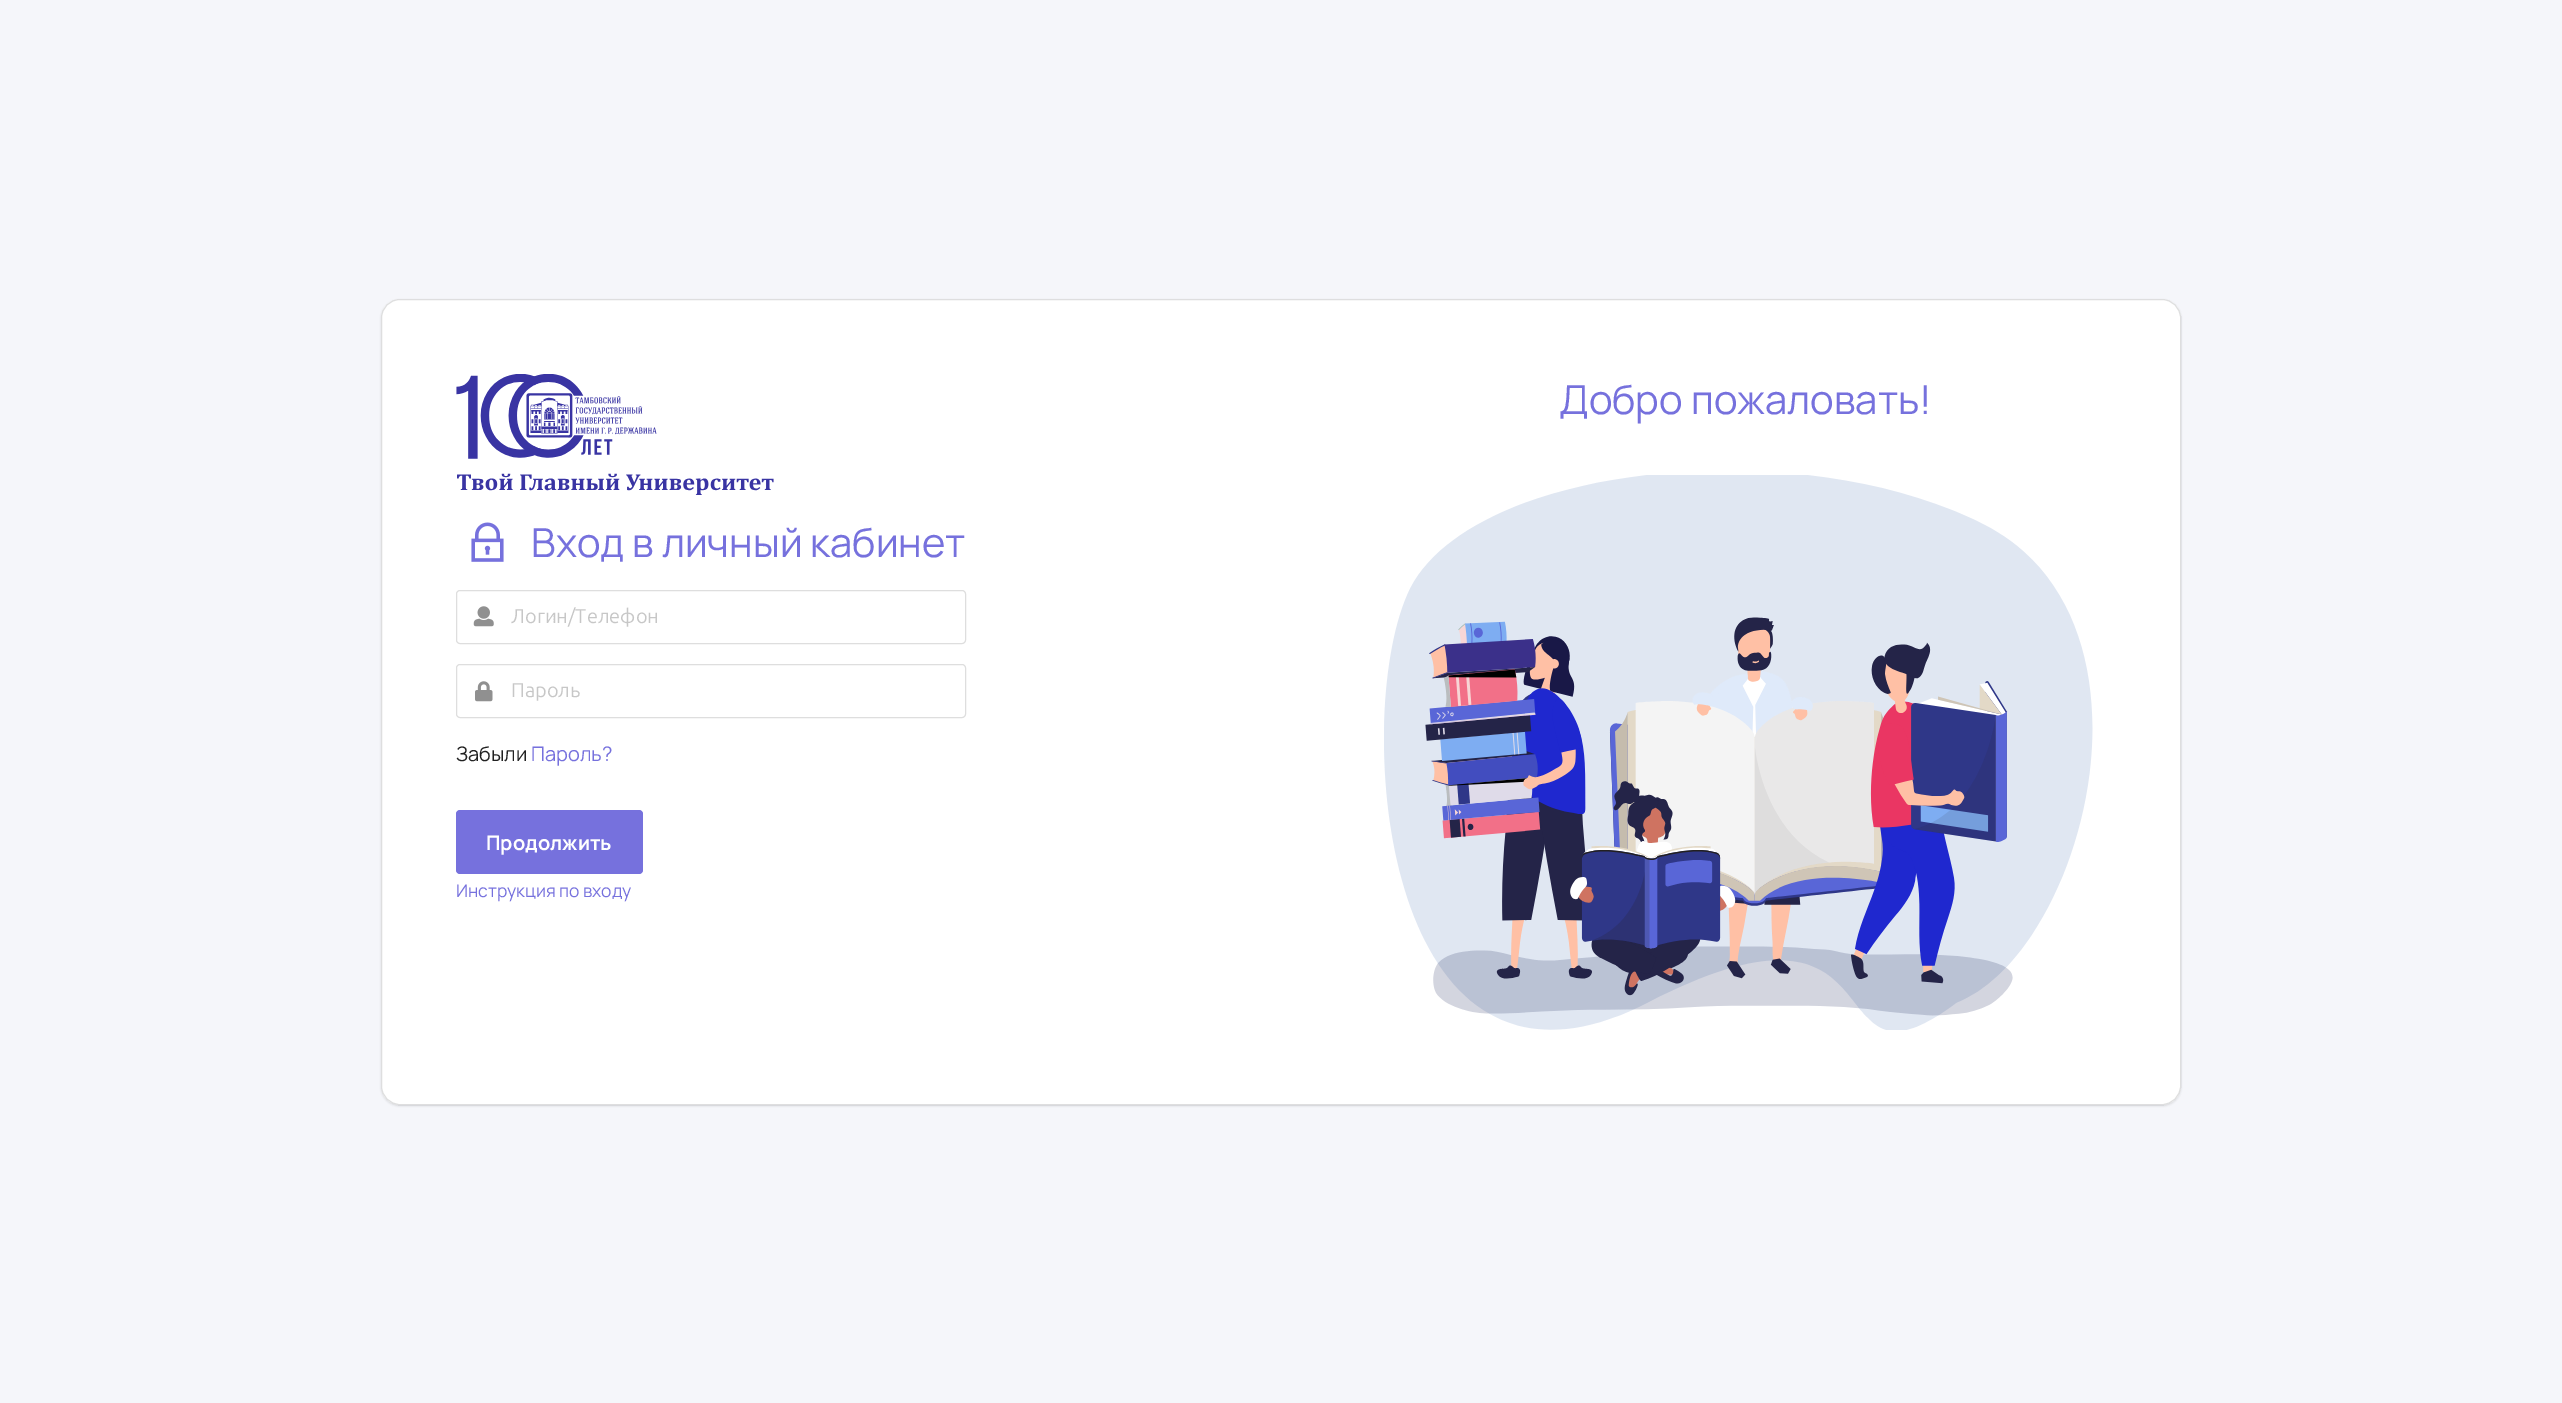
%!PS
<< /PageSize [2562 1403] /PageUsesTransparency true >> setpagedevice
/alpha { dup .setfillconstantalpha .setstrokeconstantalpha } def
/roundrect { 5 dict begin { /r /h /w /y /x } { exch def } forall
  x r add y moveto x w add y 2 copy h add r arct x w add y h add x 1 index r arct
  x y h add x y r arct x y 2 copy exch w add exch r arct closepath end } def
/shadow { 12 dict begin { /a /b /q /h /w /y /x } { exch def } forall gsave /was 0 def
  9 -2 -9 { dup b mul 4 div /e exch def 1 sub .425 mul 2.718 exch exp 1 add a .99 .min exch div /now exch def
    1 1 now sub 1 was sub div sub alpha /was now def
    w h .min e 2 mul add 0 gt { x e sub y e sub w e 2 mul add h e 2 mul add
      q e add b .6 mul add w h .min 2 div e add .min 0 .max roundrect fill } if } for grestore end } def
/picture { 5 dict begin { /h /w /y /x /name } { exch def } forall
  gsave x y translate w h scale
  w h 8 [w 0 0 h 0 0] name (r) file false 3 colorimage grestore end } def
0 .pushpdf14devicefilter
0 1403 translate 1 -1 scale
4 setmiterlimit
0.961 0.965 0.98 setrgbcolor
0 0 2562 1403 rectfill
0.133 0.141 0.149 setrgbcolor
381 300 1800 806 19 1 0.15 shadow
1 setgray
381 299 1800 806 19 roundrect fill
0.15 alpha
0.133 0.141 0.149 setrgbcolor
381.5 299.5 1799 805 18.5 roundrect stroke
/Manrope-Regular [40 0 0 -40 0 0] selectfont
1 alpha
0.463 0.443 0.867 setrgbcolor
1559 414 moveto (Добро пожаловать!) show
(img1.rgb) 1384 475 709 555 picture
(img2.rgb) 456 374 318 121 picture
(img3.rgb) 471 522 33 40 picture
531 557 moveto (Вход в личный кабинет) show
0.871 setgray
456.5 590.5 509 53 3.5 roundrect stroke
(img4.rgb) 473 606 21 21 picture
/Ubuntu-Regular [20 0 0 -20 0 0] selectfont
0.78 setgray
511 623 moveto (Логин/Телефон) show
0.871 setgray
456.5 664.5 509 53 3.5 roundrect stroke
(img5.rgb) 475 681 18 21 picture
0.78 setgray
511 697 moveto (Пароль) show
/Manrope-Regular [20 0 0 -20 0 0] selectfont
0.129 setgray
456 761 moveto (Забыли) show
0.463 0.443 0.867 setrgbcolor
531 761 moveto (Пароль?) show
456 810 187 64 4 roundrect fill
/Manrope-Bold [20 0 0 -20 0 0] selectfont
1 setgray
486 850 moveto (Продолжить) show
/Manrope-Regular [17.5 0 0 -17.5 0 0] selectfont
0.463 0.443 0.867 setrgbcolor
456 897 moveto (Инструкция по входу) show
.poppdf14devicefilter showpage
